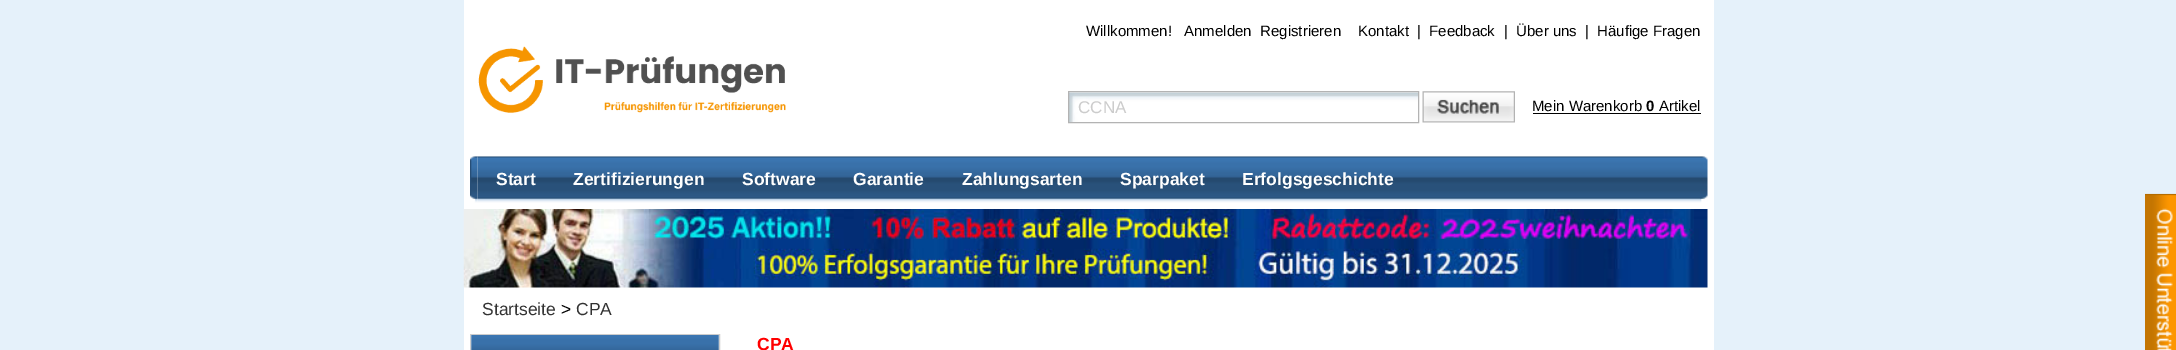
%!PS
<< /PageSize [2176 350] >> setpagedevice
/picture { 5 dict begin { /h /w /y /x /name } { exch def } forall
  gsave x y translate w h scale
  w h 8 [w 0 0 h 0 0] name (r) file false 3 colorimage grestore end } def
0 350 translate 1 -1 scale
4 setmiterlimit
0.898 0.945 0.98 setrgbcolor
0 0 2176 350 rectfill
1 setgray
464 0 1250 156 rectfill
(img1.rgb) 478 46 308 67 picture
/LiberationSans-Regular [15 0 0 -15 0 0] selectfont
0 setgray
1086 36 moveto (Willkommen!) show
1184 36 moveto (Anmelden) show
1260 36 moveto (Registrieren) show
1358 36 moveto (Kontakt) show
1417 36 moveto (|) show
1429 36 moveto (Feedback) show
1504 36 moveto (|) show
1516 36 moveto (Über uns) show
1585 36 moveto (|) show
1597 36 moveto (Häufige Fragen) show
(img2.rgb) 1069 92 349 30 picture
0.702 setgray
1068.5 91.5 350 31 rectstroke
/LiberationSans-Regular [17 0 0 -17 0 0] selectfont
0.8 setgray
1078 113 moveto (CCNA) show
(img3.rgb) 1422 91 93 32 picture
/LiberationSans-Regular [15 0 0 -15 0 0] selectfont
0 setgray
1532 111 moveto (Mein Warenkorb) show
1533 113 168 1 rectfill
/LiberationSans-Bold [15 0 0 -15 0 0] selectfont
1646 111 moveto (0) show
/LiberationSans-Regular [15 0 0 -15 0 0] selectfont
1659 111 moveto (Artikel) show
1 setgray
464 209 1250 141 rectfill
(img7.rgb) 463 208 1245 80 picture
464 156 1250 53 rectfill
(img4.rgb) 470 156 8 47 picture
(img5.rgb) 477 156 1223 47 picture
/LiberationSans-Bold [17.5 0 0 -17.5 0 0] selectfont
496 185 moveto (Start) show
573 185 moveto (Zertifizierungen) show
742 185 moveto (Software) show
853 185 moveto (Garantie) show
962 185 moveto (Zahlungsarten) show
1120 185 moveto (Sparpaket) show
1242 185 moveto (Erfolgsgeschichte) show
(img6.rgb) 1700 156 8 47 picture
(img8.rgb) 2145 193 31 157 picture
/LiberationSans-Regular [17.5 0 0 -17.5 0 0] selectfont
0.2 setgray
482 315 moveto (Startseite) show
0 setgray
561 315 moveto (>) show
0.2 setgray
576 315 moveto (CPA) show
0.8 setgray
470.5 334.5 249 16 rectstroke
(img9.rgb) 471 335 248 15 picture
/LiberationSans-Bold [17.5 0 0 -17.5 0 0] selectfont
1 0 0 setrgbcolor
757 350 moveto (CPA) show
showpage
